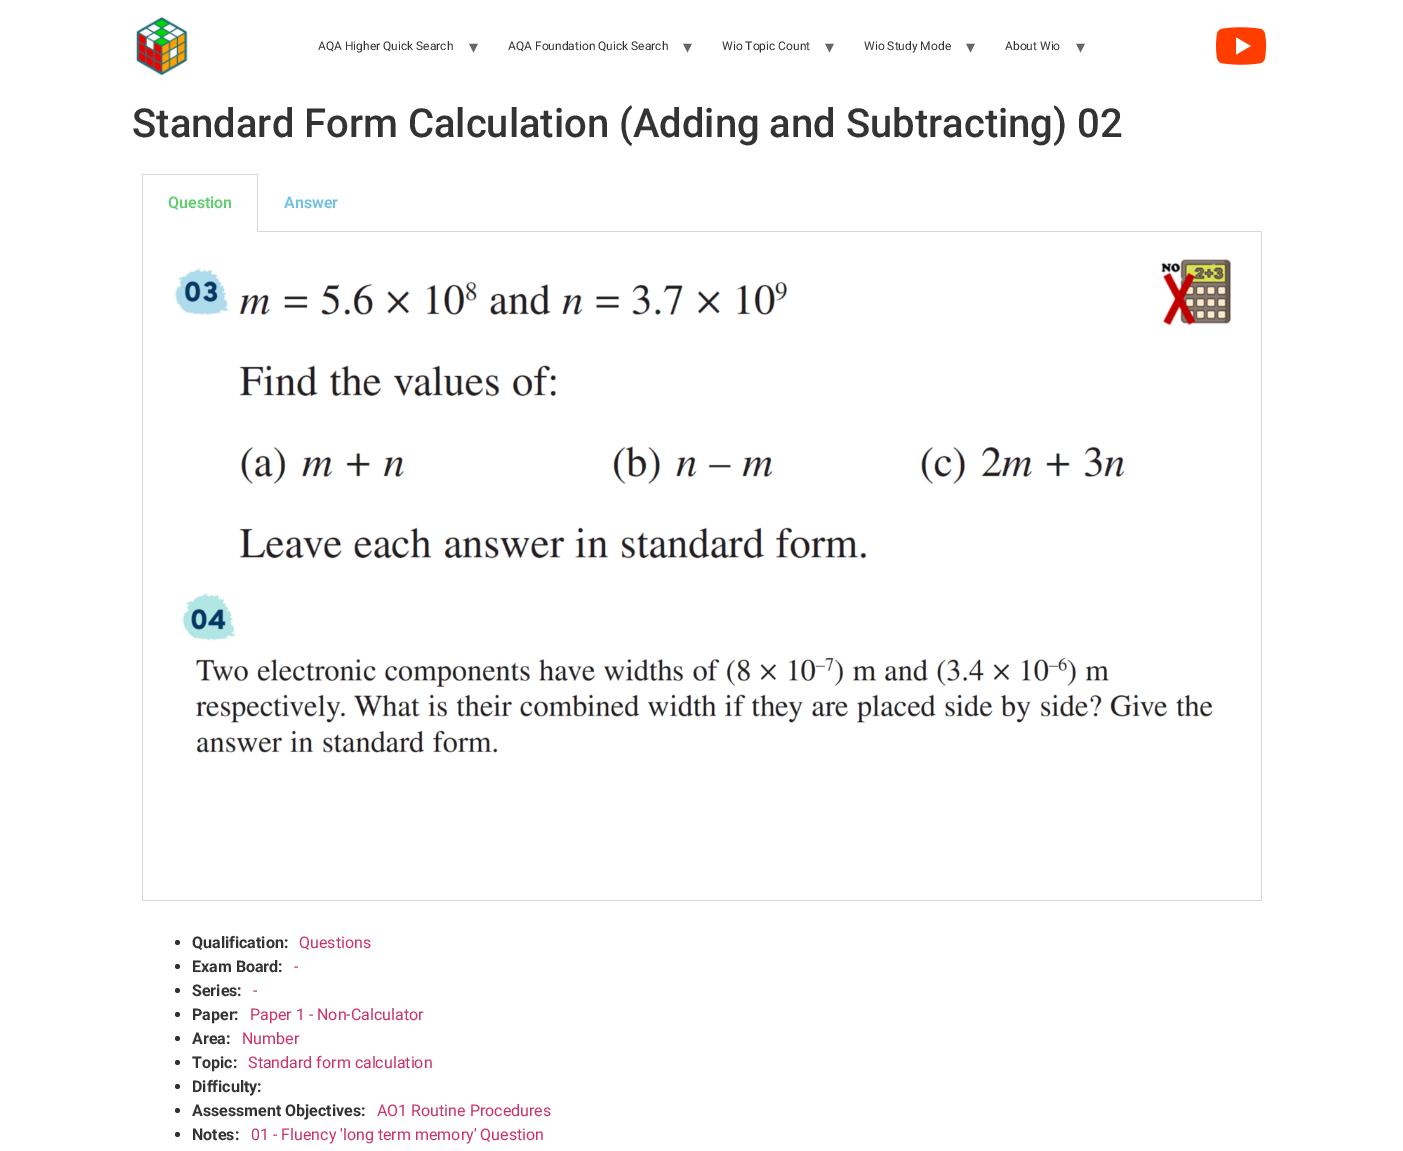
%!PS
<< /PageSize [1403 1151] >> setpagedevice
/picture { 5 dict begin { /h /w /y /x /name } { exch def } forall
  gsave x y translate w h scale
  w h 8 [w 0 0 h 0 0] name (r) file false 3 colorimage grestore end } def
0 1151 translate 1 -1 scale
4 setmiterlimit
1 setgray
0 0 1403 1151 rectfill
(img1.rgb) 136 17 52 59 picture
/Roboto-Regular [12 0 0 -12 0 0] selectfont
0.2 setgray
318 50 moveto (AQA Higher Quick Search) show
/DejaVuSans-Regular [18 0 0 -18 0 0] selectfont
0.4 setgray
469 53 moveto (▾) show
/Roboto-Regular [12 0 0 -12 0 0] selectfont
0.2 setgray
508 50 moveto (AQA Foundation Quick Search) show
/DejaVuSans-Regular [18 0 0 -18 0 0] selectfont
0.4 setgray
683 53 moveto (▾) show
/Roboto-Regular [12 0 0 -12 0 0] selectfont
0.2 setgray
722 50 moveto (Wio Topic Count) show
/DejaVuSans-Regular [18 0 0 -18 0 0] selectfont
0.4 setgray
825 53 moveto (▾) show
/Roboto-Regular [12 0 0 -12 0 0] selectfont
0.2 setgray
864 50 moveto (Wio Study Mode) show
/DejaVuSans-Regular [18 0 0 -18 0 0] selectfont
0.4 setgray
966 53 moveto (▾) show
/Roboto-Regular [12 0 0 -12 0 0] selectfont
0.2 setgray
1005 50 moveto (About Wio) show
/DejaVuSans-Regular [18 0 0 -18 0 0] selectfont
0.4 setgray
1076 53 moveto (▾) show
(img2.rgb) 1216 27 51 38 picture
/Roboto-Medium [40 0 0 -40 0 0] selectfont
0.2 setgray
132 137 moveto (Standard Form Calculation \(Adding and Subtracting\) 02) show
0.835 0.847 0.863 setrgbcolor
142 174 116 1 rectfill
257 174 1 58 rectfill
142 174 1 58 rectfill
/Roboto-SemiBold [16 0 0 -16 0 0] selectfont
0.38 0.808 0.439 setrgbcolor
168 208 moveto (Question) show
0.835 0.847 0.863 setrgbcolor
257 231 1005 1 rectfill
0.431 0.757 0.894 setrgbcolor
284 208 moveto (Answer) show
0.835 0.847 0.863 setrgbcolor
1261 232 1 669 rectfill
142 900 1120 1 rectfill
142 232 1 669 rectfill
(img3.rgb) 173 259 1058 494 picture
0.2 setgray
newpath 177.5 942.5 2.5 0 360 arc closepath fill
/Roboto-Bold [16 0 0 -16 0 0] selectfont
192 948 moveto (Qualification:) show
/Roboto-Regular [16 0 0 -16 0 0] selectfont
0.8 0.2 0.4 setrgbcolor
299 948 moveto (Questions) show
0.2 setgray
newpath 177.5 966.5 2.5 0 360 arc closepath fill
/Roboto-Bold [16 0 0 -16 0 0] selectfont
192 972 moveto (Exam Board:) show
/Roboto-Regular [16 0 0 -16 0 0] selectfont
0.8 0.2 0.4 setrgbcolor
294 972 moveto (-) show
0.2 setgray
newpath 177.5 990.5 2.5 0 360 arc closepath fill
/Roboto-Bold [16 0 0 -16 0 0] selectfont
192 996 moveto (Series:) show
/Roboto-Regular [16 0 0 -16 0 0] selectfont
0.8 0.2 0.4 setrgbcolor
253 996 moveto (-) show
0.2 setgray
newpath 177.5 1014.5 2.5 0 360 arc closepath fill
/Roboto-Bold [16 0 0 -16 0 0] selectfont
192 1020 moveto (Paper:) show
/Roboto-Regular [16 0 0 -16 0 0] selectfont
0.8 0.2 0.4 setrgbcolor
250 1020 moveto (Paper 1 - Non-Calculator) show
0.2 setgray
newpath 177.5 1038.5 2.5 0 360 arc closepath fill
/Roboto-Bold [16 0 0 -16 0 0] selectfont
192 1044 moveto (Area:) show
/Roboto-Regular [16 0 0 -16 0 0] selectfont
0.8 0.2 0.4 setrgbcolor
242 1044 moveto (Number) show
0.2 setgray
newpath 177.5 1062.5 2.5 0 360 arc closepath fill
/Roboto-Bold [16 0 0 -16 0 0] selectfont
192 1068 moveto (Topic:) show
/Roboto-Regular [16 0 0 -16 0 0] selectfont
0.8 0.2 0.4 setrgbcolor
248 1068 moveto (Standard form calculation) show
0.2 setgray
newpath 177.5 1086.5 2.5 0 360 arc closepath fill
/Roboto-Bold [16 0 0 -16 0 0] selectfont
192 1092 moveto (Difficulty:) show
newpath 177.5 1110.5 2.5 0 360 arc closepath fill
192 1116 moveto (Assessment Objectives:) show
/Roboto-Regular [16 0 0 -16 0 0] selectfont
0.8 0.2 0.4 setrgbcolor
377 1116 moveto (AO1 Routine Procedures) show
0.2 setgray
newpath 177.5 1134.5 2.5 0 360 arc closepath fill
/Roboto-Bold [16 0 0 -16 0 0] selectfont
192 1140 moveto (Notes:) show
/Roboto-Regular [16 0 0 -16 0 0] selectfont
0.8 0.2 0.4 setrgbcolor
251 1140 moveto (01 - Fluency 'long term memory' Question) show
showpage
